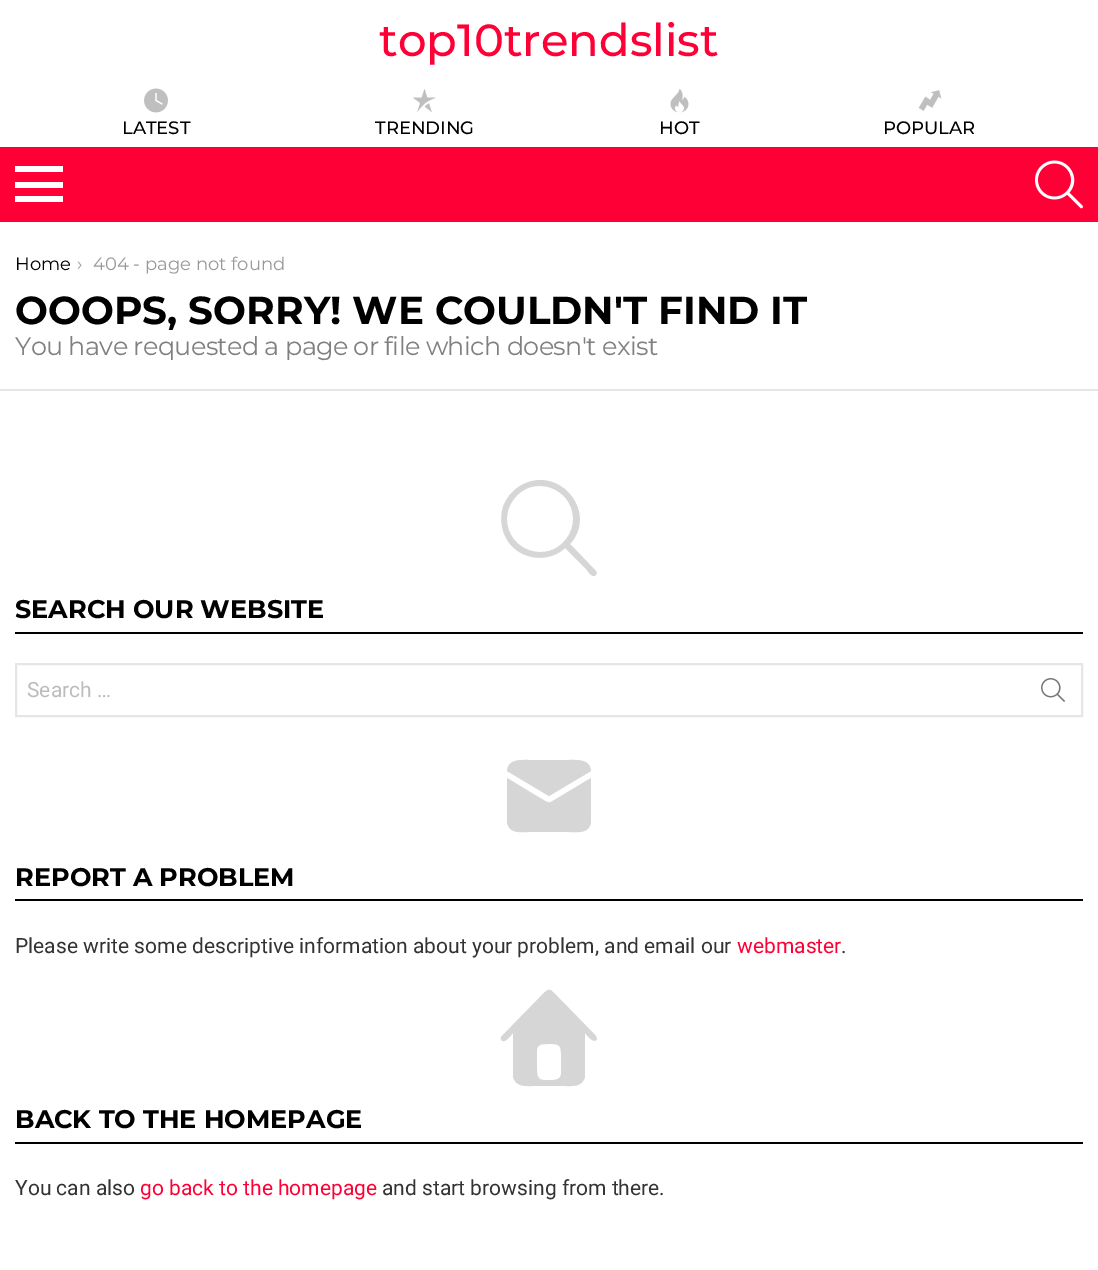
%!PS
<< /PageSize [1098 1270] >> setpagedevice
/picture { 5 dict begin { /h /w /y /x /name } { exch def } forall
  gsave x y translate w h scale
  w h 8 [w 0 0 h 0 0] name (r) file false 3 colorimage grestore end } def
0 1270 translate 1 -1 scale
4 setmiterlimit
1 setgray
0 0 1098 1270 rectfill
/Montserrat-Medium [45 0 0 -45 0 0] selectfont
1 0 0.212 setrgbcolor
379 56 moveto (top10trendslist) show
(img1.rgb) 144 88 24 25 picture
/Montserrat-Medium [18 0 0 -18 0 0] selectfont
0 setgray
122 134 moveto (LATEST) show
(img2.rgb) 413 89 23 24 picture
375 134 moveto (TRENDING) show
(img3.rgb) 670 88 19 25 picture
659 134 moveto (HOT) show
(img4.rgb) 918 90 24 21 picture
883 134 moveto (POPULAR) show
1 0 0.212 setrgbcolor
0 147 1098 75 rectfill
1 setgray
newpath 15 166 moveto 63 166 lineto 63 172 lineto 15 172 lineto closepath 15 182 moveto 63 182 lineto 63 188 lineto 15 188 lineto closepath 15 196 moveto 63 196 lineto 63 202 lineto 15 202 lineto closepath fill
(img5.rgb) 1035 160 48 49 picture
/Montserrat-Regular [18 0 0 -18 0 0] selectfont
0 setgray
15 270 moveto (Home) show
0.6 setgray
77 270 moveto (›) show
93 270 moveto (404 - page not found) show
/Montserrat-Bold [39 0 0 -39 0 0] selectfont
0 setgray
15 324 moveto (OOOPS, SORRY! WE COULDN'T FIND IT) show
/Montserrat-Regular [25.5 0 0 -25.5 0 0] selectfont
0.502 setgray
15 355 moveto -0.65 0 (You have requested a page or file which doesn't exist) ashow
0.902 setgray
0 389 1098 2 rectfill
0.839 setgray
newpath 596 571 moveto 570 544 lineto 599 512 558 463 520 486 curveto 512 491 506 498 503 507 curveto 499 520 502 534 510 544 curveto 523 560 549 563 565 548 curveto 587 570 lineto 588 572 591 576 594 576 curveto 597 575 597 573 596 571 curveto closepath 507 519 moveto 507 512 509 505 514 499 curveto 532 474 573 487 573 519 curveto 573 526 571 533 566 539 curveto 548 564 507 551 507 519 curveto closepath fill
0 setgray
15 632 1068 2 rectfill
/Montserrat-Bold [25.5 0 0 -25.5 0 0] selectfont
15 618 moveto (SEARCH OUR WEBSITE) show
0.902 setgray
2 setlinewidth
16 664 1066 52 rectstroke
/Roboto-Regular [21 0 0 -21 0 0] selectfont
0.737 setgray
27 697 moveto (Search …) show
(img6.rgb) 1041 678 24 24 picture
0.839 setgray
newpath 549 796 moveto 591 771 lineto 590 759 578 760 569 760 curveto 529 760 lineto 520 760 508 759 507 771 curveto closepath 551 802 moveto 548 804 541 798 540 798 curveto 507 778 lineto 507 822 lineto 509 834 520 832 529 832 curveto 569 832 lineto 578 832 589 834 591 822 curveto 591 778 lineto closepath fill
0 setgray
15 899 1068 2 rectfill
/Montserrat-Bold [25.5 0 0 -25.5 0 0] selectfont
15 886 moveto (REPORT A PROBLEM) show
/Roboto-Regular [21 0 0 -21 0 0] selectfont
0.2 setgray
15 953 moveto (Please write some descriptive information about your problem, and email our) show
1 0 0.212 setrgbcolor
737 953 moveto (webmaster) show
0.2 setgray
841 953 moveto (.) show
0.839 setgray
newpath 596 1036 moveto 559 998 lineto 548 987 550 987 539 998 curveto 502 1036 lineto 500 1037 501 1041 503 1041 curveto 506 1042 511 1035 513 1033 curveto 513 1077 lineto 516 1087 525 1086 533 1086 curveto 565 1086 lineto 573 1086 582 1087 585 1077 curveto 585 1033 lineto 586 1034 594 1045 597 1039 curveto closepath 561 1074 moveto 561 1078 557 1080 553 1080 curveto 542 1080 537 1082 537 1070 curveto 537 1050 lineto 537 1044 543 1044 547 1044 curveto 557 1044 561 1043 561 1054 curveto closepath fill
0 setgray
15 1142 1068 2 rectfill
/Montserrat-Bold [25.5 0 0 -25.5 0 0] selectfont
15 1128 moveto (BACK TO THE HOMEPAGE) show
/Roboto-Regular [21 0 0 -21 0 0] selectfont
0.2 setgray
15 1195 moveto (You can also) show
1 0 0.212 setrgbcolor
140 1195 moveto (go back to the homepage) show
0.2 setgray
382 1195 moveto (and start browsing from there.) show
showpage
